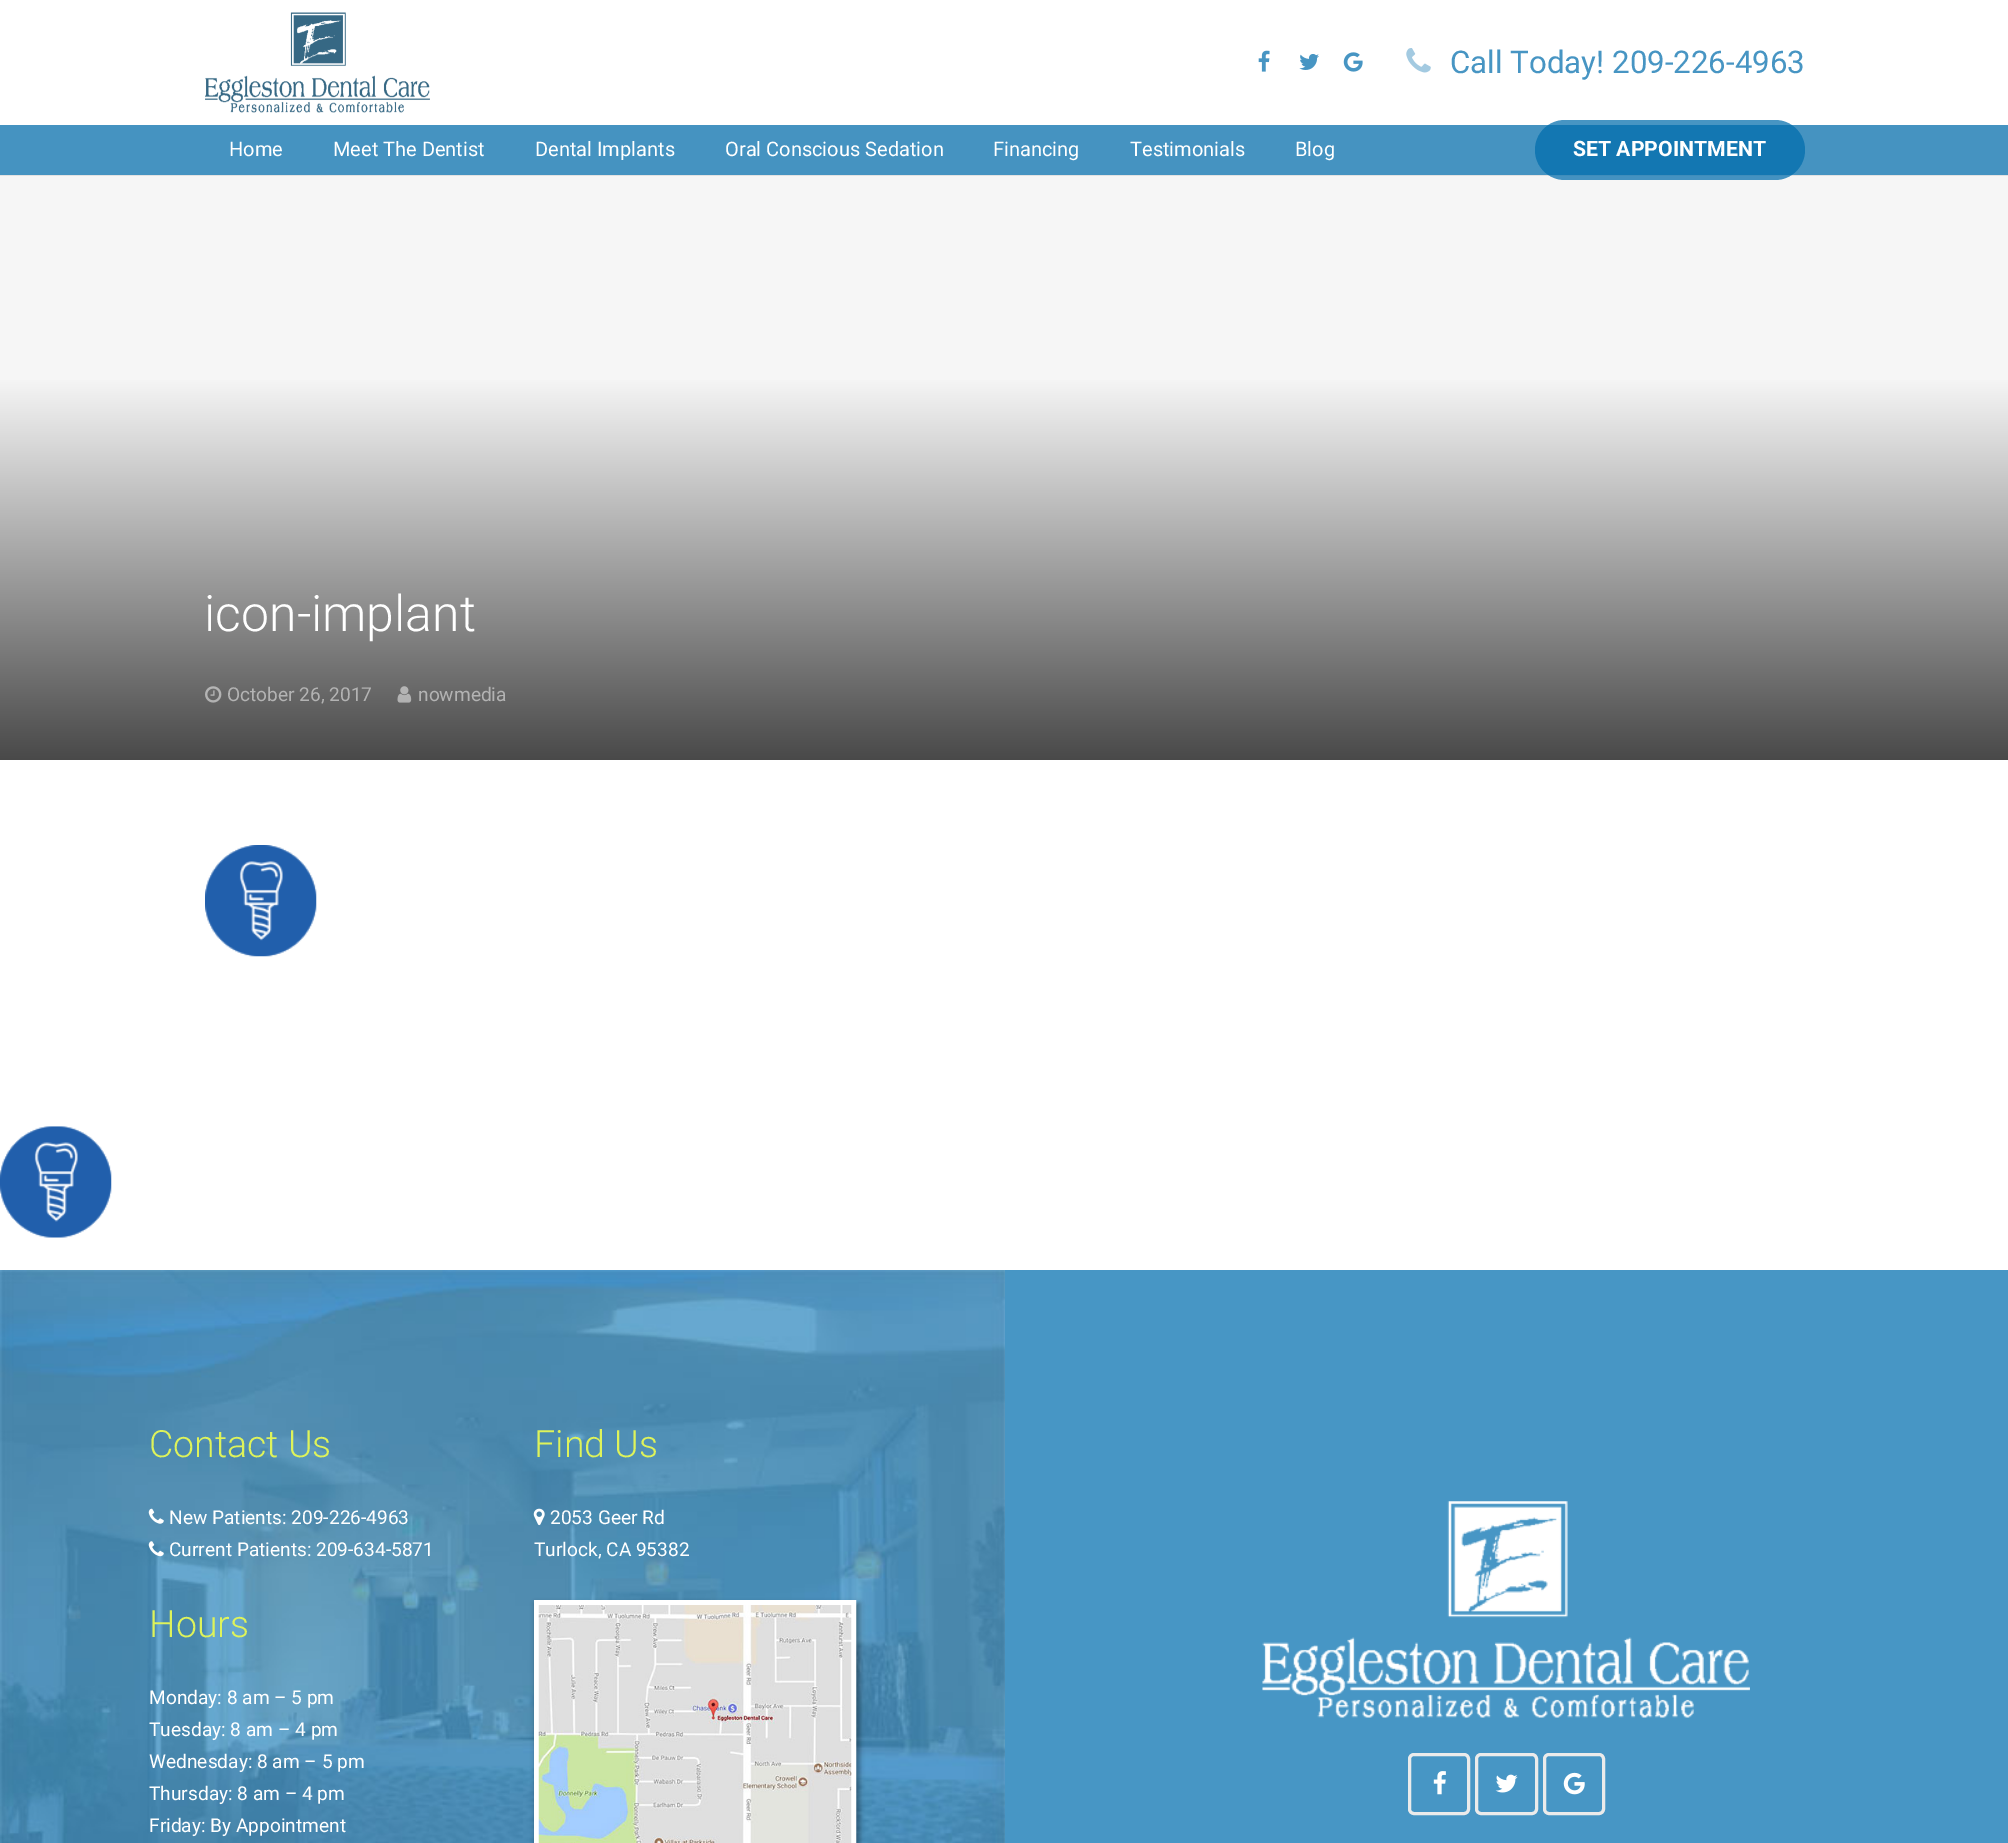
%!PS
<< /PageSize [2008 1843] /PageUsesTransparency true >> setpagedevice
/alpha { dup .setfillconstantalpha .setstrokeconstantalpha } def
/roundrect { 5 dict begin { /r /h /w /y /x } { exch def } forall
  x r add y moveto x w add y 2 copy h add r arct x w add y h add x 1 index r arct
  x y h add x y r arct x y 2 copy exch w add exch r arct closepath end } def
/shadow { 12 dict begin { /a /b /q /h /w /y /x } { exch def } forall gsave /was 0 def
  9 -2 -9 { dup b mul 4 div /e exch def 1 sub .425 mul 2.718 exch exp 1 add a .99 .min exch div /now exch def
    1 1 now sub 1 was sub div sub alpha /was now def
    w h .min e 2 mul add 0 gt { x e sub y e sub w e 2 mul add h e 2 mul add
      q e add b .6 mul add w h .min 2 div e add .min 0 .max roundrect fill } if } for grestore end } def
/picture { 5 dict begin { /h /w /y /x /name } { exch def } forall
  gsave x y translate w h scale
  w h 8 [w 0 0 h 0 0] name (r) file false 3 colorimage grestore end } def
0 .pushpdf14devicefilter
0 1843 translate 1 -1 scale
4 setmiterlimit
1 setgray
0 0 2008 1843 rectfill
(img1.rgb) 205 12 225 101 picture
(img2.rgb) 1258 50 12 22 picture
(img3.rgb) 1299 54 20 16 picture
(img4.rgb) 1343 52 20 20 picture
(img5.rgb) 1406 48 25 25 picture
/Roboto-Regular [31.25 0 0 -31.25 0 0] selectfont
0.278 0.584 0.765 setrgbcolor
1450 73 moveto (Call Today! 209-226-4963) show
0.886 setgray
newpath 0 175 moveto 0 176 lineto 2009 176 lineto 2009 126 lineto 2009 175 lineto closepath fill
0.271 0.576 0.757 setrgbcolor
0 125 2008 50 rectfill
/Roboto-Regular [20 0 0 -20 0 0] selectfont
1 setgray
229 156 moveto (Home) show
333 156 moveto (Meet The Dentist) show
535 156 moveto (Dental Implants) show
725 156 moveto (Oral Conscious Sedation) show
993 156 moveto (Financing) show
1130 156 moveto (Testimonials) show
1295 156 moveto (Blog) show
0.965 setgray
0 176 2008 204 rectfill
0.72 alpha
0 0.424 0.675 setrgbcolor
1535 120 270 60 30 roundrect fill
/Roboto-Bold [21.25 0 0 -21.25 0 0] selectfont
1 alpha
1 setgray
1573 156 moveto (SET APPOINTMENT) show
gsave newpath 0 380 moveto 2008 380 lineto 2008 760 lineto 0 760 lineto closepath clip newpath
<< /ShadingType 2 /ColorSpace /DeviceRGB /Coords [1004 380 1004 760] /Extend [true true] /Function << /FunctionType 2 /Domain [0 1] /C0 [0.961 0.961 0.961] /C1 [0.286 0.286 0.286] /N 1 >> >> shfill grestore
/Roboto-Light [50 0 0 -50 0 0] selectfont
204 631 moveto (icon-implant) show
(img6.rgb) 205 686 17 17 picture
/Roboto-Regular [19.1 0 0 -19.1 0 0] selectfont
0.702 setgray
227 701 moveto (October 26, 2017) show
(img7.rgb) 397 686 15 17 picture
418 701 moveto (nowmedia) show
(img8.rgb) 205 845 112 112 picture
(img9.rgb) 0 1126 112 112 picture
0.278 0.588 0.773 setrgbcolor
1005 1270 1003 573 rectfill
(img10.rgb) 0 1270 1005 573 picture
/Roboto-Light [37.5 0 0 -37.5 0 0] selectfont
0.871 0.953 0.353 setrgbcolor
149 1457 moveto (Contact Us) show
(img11.rgb) 148 1508 16 16 picture
/Roboto-Regular [19.1 0 0 -19.1 0 0] selectfont
1 setgray
169 1524 moveto (New Patients: 209-226-4963) show
(img12.rgb) 148 1541 16 16 picture
169 1556 moveto (Current Patients: 209-634-5871) show
/Roboto-Light [37.5 0 0 -37.5 0 0] selectfont
0.871 0.953 0.353 setrgbcolor
149 1637 moveto (Hours) show
/Roboto-Regular [19.1 0 0 -19.1 0 0] selectfont
1 setgray
149 1704 moveto (Monday: 8 am – 5 pm) show
149 1736 moveto (Tuesday: 8 am – 4 pm) show
149 1768 moveto (Wednesday: 8 am – 5 pm) show
149 1800 moveto (Thursday: 8 am – 4 pm) show
149 1832 moveto (Friday: By Appointment) show
/Roboto-Light [37.5 0 0 -37.5 0 0] selectfont
0.871 0.953 0.353 setrgbcolor
534 1457 moveto (Find Us) show
(img13.rgb) 533 1508 12 18 picture
/Roboto-Regular [19.1 0 0 -19.1 0 0] selectfont
1 setgray
550 1524 moveto (2053 Geer Rd) show
534 1556 moveto (Turlock, CA 95382) show
0 setgray
535 1603 325 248 0 2.5 0.34 shadow
1 setgray
5 setlinewidth
536.5 1602.5 317 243 rectstroke
(img14.rgb) 538 1605 314 238 picture
(img15.rgb) 1262 1501 488 217 picture
0.922 setgray
3 setlinewidth
1409.5 1754.5 59 59 4.5 roundrect stroke
(img16.rgb) 1433 1771 13 24 picture
1476.5 1754.5 60 59 4.5 roundrect stroke
(img17.rgb) 1495 1774 23 19 picture
1544.5 1754.5 59 59 4.5 roundrect stroke
(img18.rgb) 1563 1772 22 23 picture
.poppdf14devicefilter showpage
